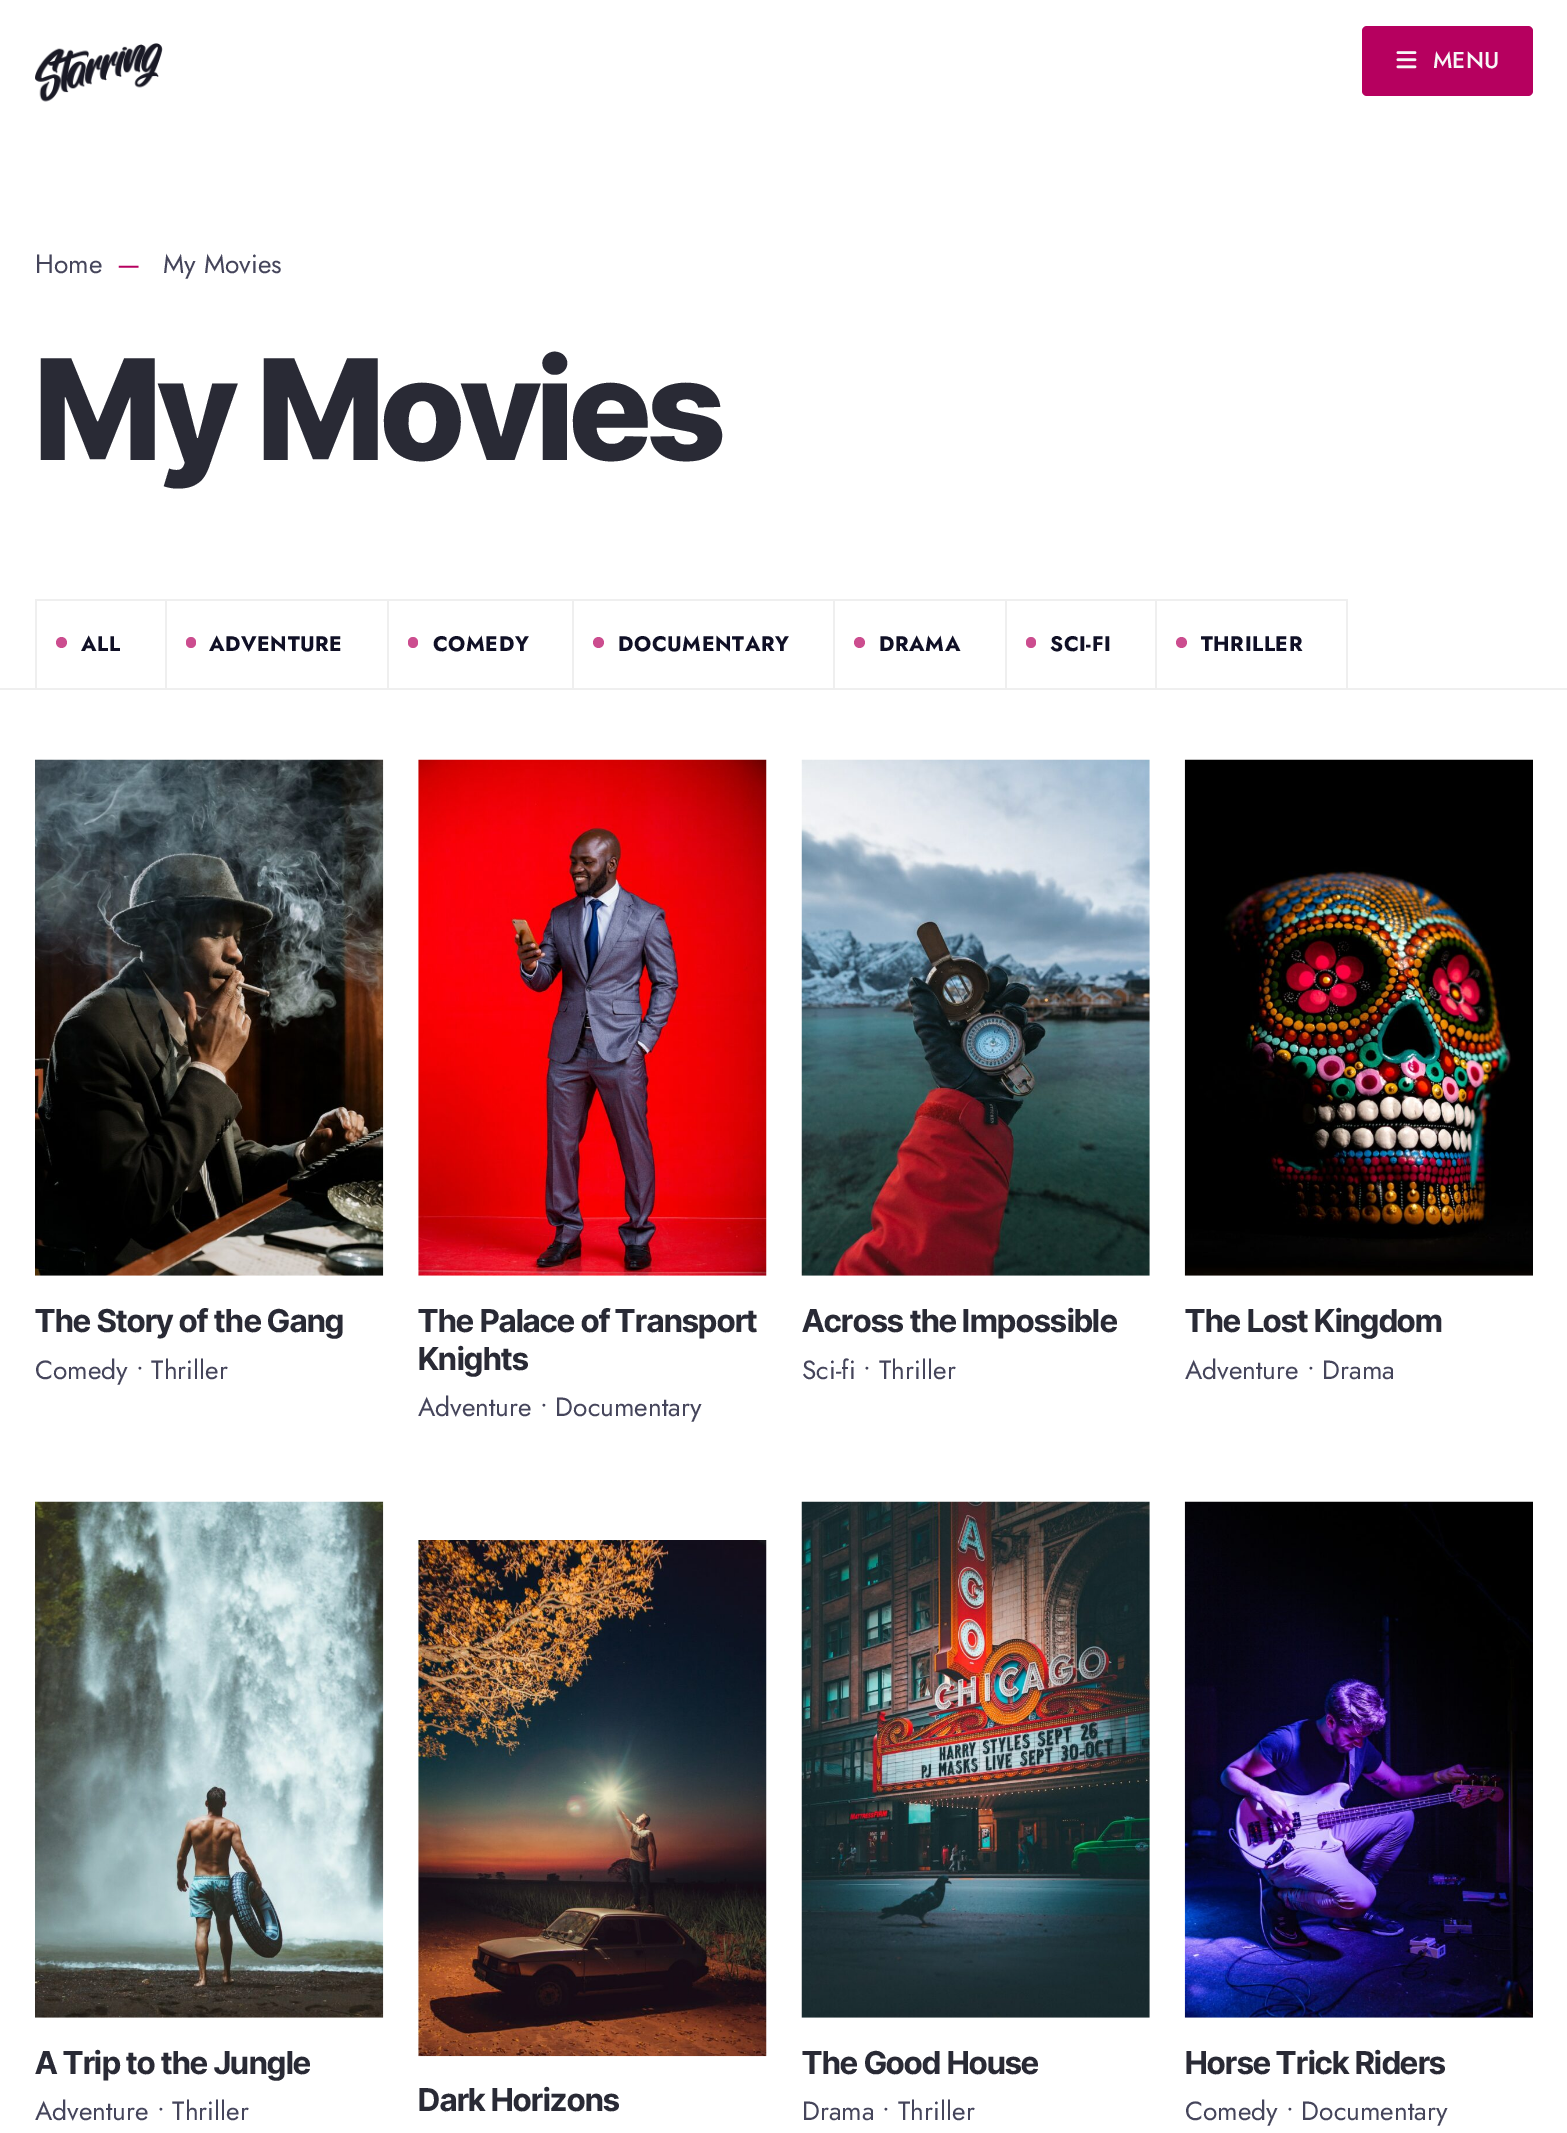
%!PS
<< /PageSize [1567 2133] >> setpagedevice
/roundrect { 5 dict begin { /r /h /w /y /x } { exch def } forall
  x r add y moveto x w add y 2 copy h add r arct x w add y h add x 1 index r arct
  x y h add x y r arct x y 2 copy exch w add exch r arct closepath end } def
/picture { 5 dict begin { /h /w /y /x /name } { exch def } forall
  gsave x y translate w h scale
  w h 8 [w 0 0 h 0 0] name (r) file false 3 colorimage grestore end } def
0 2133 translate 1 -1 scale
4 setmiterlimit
1 setgray
0 0 1567 2133 rectfill
(img1.rgb) 35 43 128 59 picture
0.714 0 0.373 setrgbcolor
1362 26 171 70 5 roundrect fill
(img2.rgb) 1396 51 21 18 picture
/Jost-Medium [23 0 0 -23 0 0] selectfont
0.969 setgray
1433 68 moveto (MENU) show
0.937 setgray
0 688 1567 2 rectfill
/Jost-Regular [26.25 0 0 -26.25 0 0] selectfont
0.271 0.271 0.357 setrgbcolor
35 273 moveto (Home) show
0.714 0 0.373 setrgbcolor
117 273 moveto (—) show
0.271 0.271 0.357 setrgbcolor
163 273 moveto (My Movies) show
/InterTight-ExtraBold [140 0 0 -140 0 0] selectfont
0.161 0.165 0.208 setrgbcolor
35 460 moveto -2.75 0 (My Movies) ashow
0.937 setgray
35 599 131 2 rectfill
165 599 2 89 rectfill
35 599 2 89 rectfill
0.8 0.302 0.561 setrgbcolor
newpath 61.5 642.5 5.5 0 360 arc closepath fill
/Jost-Bold [21 0 0 -21 0 0] selectfont
0.063 0.063 0.149 setrgbcolor
81 651 moveto 0.6 0 (ALL) ashow
0.937 setgray
166 599 840 2 rectfill
387 599 2 89 rectfill
0.8 0.302 0.561 setrgbcolor
186 637 10 11 5 roundrect fill
0.063 0.063 0.149 setrgbcolor
209 651 moveto 0.6 0 (ADVENTURE) ashow
0.937 setgray
572 599 2 89 rectfill
0.8 0.302 0.561 setrgbcolor
408 637 10 11 5 roundrect fill
0.063 0.063 0.149 setrgbcolor
433 651 moveto 0.6 0 (COMEDY) ashow
0.937 setgray
833 599 2 89 rectfill
0.8 0.302 0.561 setrgbcolor
newpath 598.5 642.5 5.5 0 360 arc closepath fill
0.063 0.063 0.149 setrgbcolor
618 651 moveto 0.6 0 (DOCUMENTARY) ashow
0.937 setgray
1005 599 2 89 rectfill
0.8 0.302 0.561 setrgbcolor
newpath 859.5 642.5 5.5 0 360 arc closepath fill
0.063 0.063 0.149 setrgbcolor
879 651 moveto 0.6 0 (DRAMA) ashow
0.937 setgray
1006 599 342 2 rectfill
1155 599 2 89 rectfill
0.8 0.302 0.561 setrgbcolor
1026 637 10 11 5 roundrect fill
0.063 0.063 0.149 setrgbcolor
1050 651 moveto 0.6 0 (SCI-FI) ashow
0.937 setgray
1346 599 2 89 rectfill
0.8 0.302 0.561 setrgbcolor
newpath 1181.5 642.5 5.5 0 360 arc closepath fill
0.063 0.063 0.149 setrgbcolor
1201 651 moveto 0.6 0 (THRILLER) ashow
(img3.rgb) 35 759 349 517 picture
/InterTight-Bold [31.5 0 0 -31.5 0 0] selectfont
0.161 0.165 0.208 setrgbcolor
35 1332 moveto -0.3 0 (The Story of the Gang) ashow
/Jost-Regular [26.25 0 0 -26.25 0 0] selectfont
0.271 0.271 0.357 setrgbcolor
35 1379 moveto (Comedy • Thriller) show
(img4.rgb) 418 759 349 517 picture
/InterTight-Bold [31.5 0 0 -31.5 0 0] selectfont
0.161 0.165 0.208 setrgbcolor
418 1332 moveto -0.3 0 (The Palace of Transport) ashow
418 1370 moveto -0.3 0 (Knights) ashow
/Jost-Regular [26.25 0 0 -26.25 0 0] selectfont
0.271 0.271 0.357 setrgbcolor
418 1416 moveto (Adventure • Documentary) show
(img5.rgb) 801 759 349 517 picture
/InterTight-Bold [31.5 0 0 -31.5 0 0] selectfont
0.161 0.165 0.208 setrgbcolor
802 1332 moveto -0.3 0 (Across the Impossible) ashow
/Jost-Regular [26.25 0 0 -26.25 0 0] selectfont
0.271 0.271 0.357 setrgbcolor
802 1379 moveto (Sci-fi • Thriller) show
(img6.rgb) 1184 759 349 517 picture
/InterTight-Bold [31.5 0 0 -31.5 0 0] selectfont
0.161 0.165 0.208 setrgbcolor
1185 1332 moveto -0.3 0 (The Lost Kingdom) ashow
/Jost-Regular [26.25 0 0 -26.25 0 0] selectfont
0.271 0.271 0.357 setrgbcolor
1185 1379 moveto (Adventure • Drama) show
(img7.rgb) 35 1501 349 517 picture
/InterTight-Bold [31.5 0 0 -31.5 0 0] selectfont
0.161 0.165 0.208 setrgbcolor
35 2074 moveto -0.3 0 (A Trip to the Jungle) ashow
/Jost-Regular [26.25 0 0 -26.25 0 0] selectfont
0.271 0.271 0.357 setrgbcolor
35 2120 moveto (Adventure • Thriller) show
(img8.rgb) 418 1540 349 517 picture
/InterTight-Bold [31.5 0 0 -31.5 0 0] selectfont
0.161 0.165 0.208 setrgbcolor
418 2111 moveto -0.3 0 (Dark Horizons) ashow
(img9.rgb) 801 1501 349 517 picture
802 2074 moveto -0.3 0 (The Good House) ashow
/Jost-Regular [26.25 0 0 -26.25 0 0] selectfont
0.271 0.271 0.357 setrgbcolor
802 2120 moveto (Drama • Thriller) show
(img10.rgb) 1184 1501 349 517 picture
/InterTight-Bold [31.5 0 0 -31.5 0 0] selectfont
0.161 0.165 0.208 setrgbcolor
1185 2074 moveto -0.3 0 (Horse Trick Riders) ashow
/Jost-Regular [26.25 0 0 -26.25 0 0] selectfont
0.271 0.271 0.357 setrgbcolor
1185 2120 moveto (Comedy • Documentary) show
showpage
